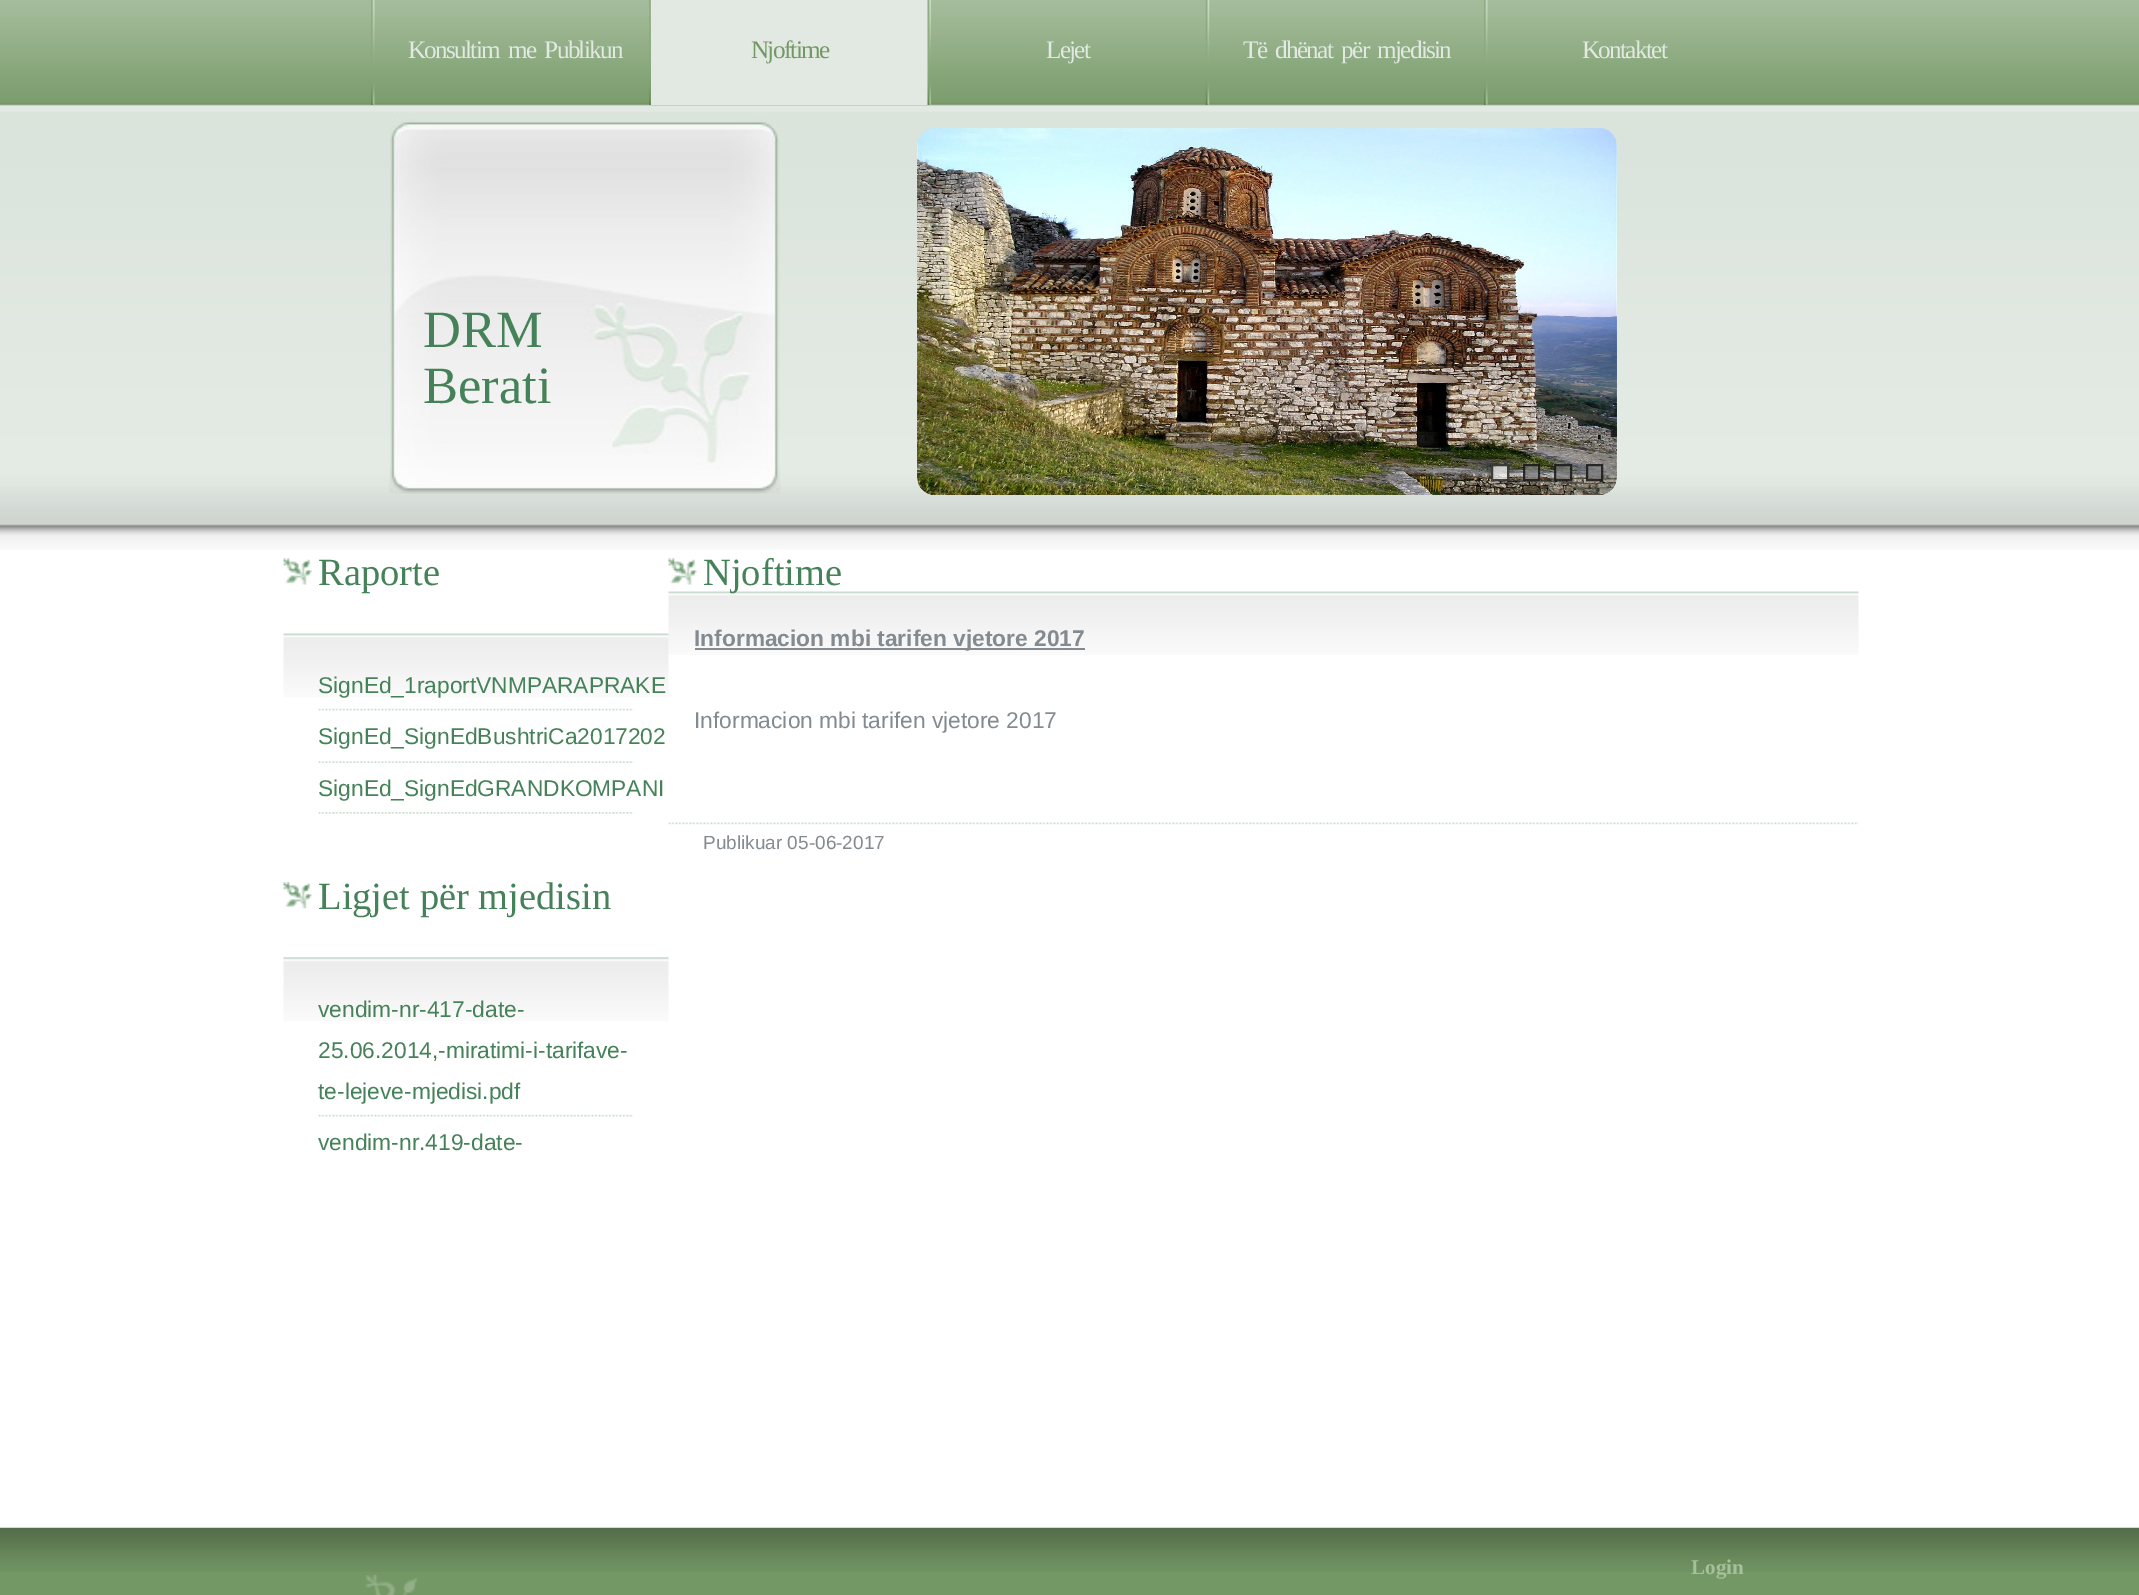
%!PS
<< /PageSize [2139 1595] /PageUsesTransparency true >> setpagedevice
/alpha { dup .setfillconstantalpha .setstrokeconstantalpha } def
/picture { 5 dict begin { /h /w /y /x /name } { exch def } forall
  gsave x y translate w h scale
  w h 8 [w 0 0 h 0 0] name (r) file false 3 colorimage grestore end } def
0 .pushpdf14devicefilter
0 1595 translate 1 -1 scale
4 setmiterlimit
1 setgray
0 0 2139 1595 rectfill
(img1.rgb) 0 0 2139 550 picture
(img2.rgb) 371 0 4 105 picture
/LiberationSerif-Regular [25.25 0 0 -25.25 0 0] selectfont
0.882 0.914 0.886 setrgbcolor
408 58 moveto -1.75 0 (Konsultim  me  Publikun) ashow
(img3.rgb) 649 0 2 105 picture
651 0 277 105 rectfill
0.455 0.596 0.396 setrgbcolor
751 58 moveto -1.75 0 (Njoftime) ashow
(img4.rgb) 927 0 4 105 picture
0.882 0.914 0.886 setrgbcolor
1046 58 moveto -1.75 0 (Lejet) ashow
(img5.rgb) 1205 0 5 105 picture
1243 58 moveto -1.75 0 (Të  dhënat  për  mjedisin) ashow
(img2.rgb) 1484 0 4 105 picture
1582 58 moveto -1.75 0 (Kontaktet) ashow
(img6.rgb) 389 119 392 375 picture
/LiberationSerif-Regular [52.5 0 0 -52.5 0 0] selectfont
0.275 0.51 0.349 setrgbcolor
423 347 moveto (DRM) show
423 403 moveto (Berati) show
(img7.rgb) 917 128 700 367 picture
0.7 alpha
1 setgray
1491 464 18 17 rectfill
0 setgray
2 setlinewidth
1492 465 16 15 rectstroke
0.502 setgray
1523 464 17 17 rectfill
0 setgray
1524 465 15 15 rectstroke
0.502 setgray
1554 464 18 17 rectfill
0 setgray
1555 465 16 15 rectstroke
0.502 setgray
1586 464 17 17 rectfill
0 setgray
1587 465 15 15 rectstroke
1 alpha
(img8.rgb) 283 558 29 27 picture
/LiberationSerif-Regular [38.5 0 0 -38.5 0 0] selectfont
0.275 0.51 0.349 setrgbcolor
318 585 moveto (Raporte) show
(img15.rgb) 668 591 1191 64 picture
(img9.rgb) 283 633 386 64 picture
(img10.rgb) 318 708 316 3 picture
/LiberationSans-Regular [22.75 0 0 -22.75 0 0] selectfont
318 693 moveto (SignEd_1raportVNMPARAPRAKE) show
(img11.rgb) 318 761 316 2 picture
318 744 moveto (SignEd_SignEdBushtriCa2017202) show
(img12.rgb) 318 812 316 2 picture
318 796 moveto (SignEd_SignEdGRANDKOMPANI) show
(img13.rgb) 283 882 29 27 picture
/LiberationSerif-Regular [38.5 0 0 -38.5 0 0] selectfont
318 909 moveto (Ligjet për mjedisin) show
(img14.rgb) 283 957 386 64 picture
(img10.rgb) 318 1114 316 3 picture
/LiberationSans-Regular [22.75 0 0 -22.75 0 0] selectfont
318 1017 moveto (vendim-nr-417-date-) show
318 1058 moveto (25.06.2014,-miratimi-i-tarifave-) show
318 1099 moveto (te-lejeve-mjedisi.pdf) show
318 1150 moveto (vendim-nr.419-date-) show
(img8.rgb) 668 558 29 27 picture
/LiberationSerif-Regular [38.5 0 0 -38.5 0 0] selectfont
703 585 moveto (Njoftime) show
0.514 0.545 0.569 setrgbcolor
695 648 390 2 rectfill
/LiberationSans-Bold [22.75 0 0 -22.75 0 0] selectfont
694 646 moveto (Informacion mbi tarifen vjetore 2017) show
/LiberationSans-Regular [22.75 0 0 -22.75 0 0] selectfont
694 728 moveto (Informacion mbi tarifen vjetore 2017) show
(img16.rgb) 668 822 1191 3 picture
/LiberationSans-Regular [19 0 0 -19 0 0] selectfont
703 849 moveto (Publikuar 05-06-2017) show
0.455 0.596 0.396 setrgbcolor
0 1572 2139 23 rectfill
(img17.rgb) 0 1527 2139 45 picture
/LiberationSerif-Bold [21 0 0 -21 0 0] selectfont
0.651 0.753 0.608 setrgbcolor
1691 1574 moveto (Login) show
(img18.rgb) 365 1575 53 20 picture
.poppdf14devicefilter showpage
